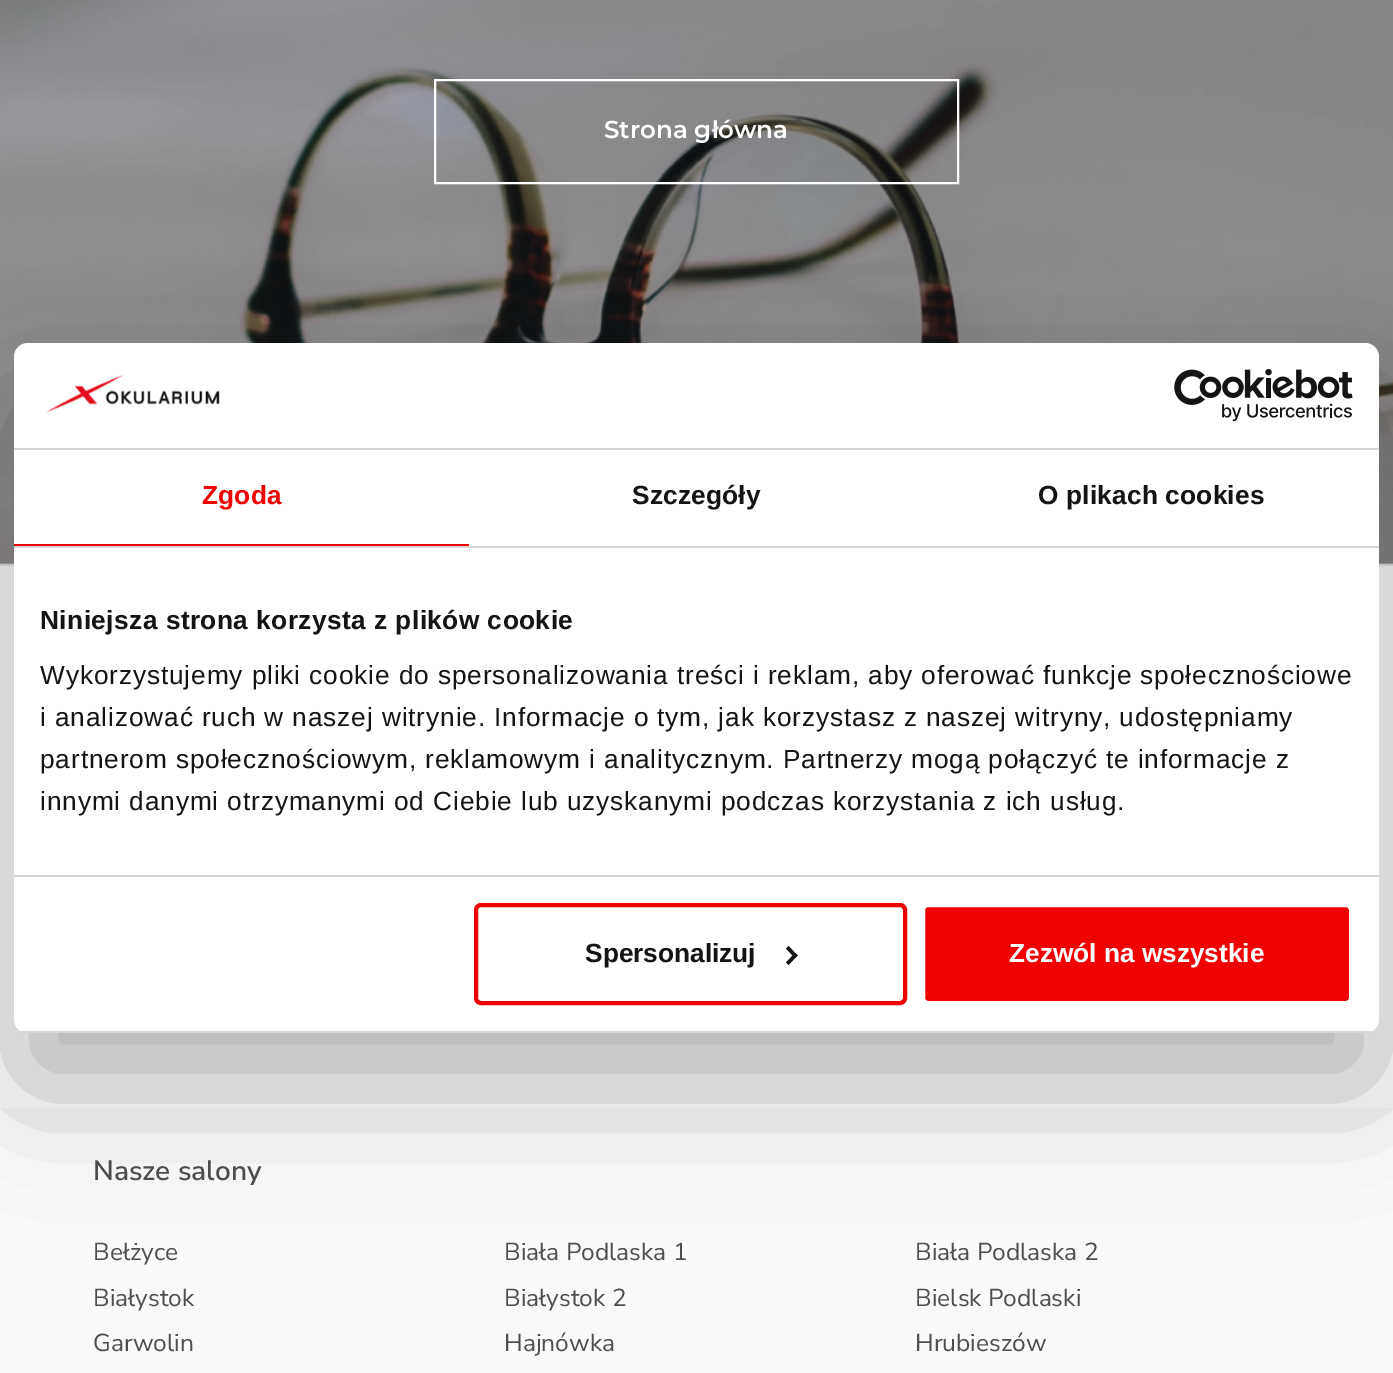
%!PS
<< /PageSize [1393 1373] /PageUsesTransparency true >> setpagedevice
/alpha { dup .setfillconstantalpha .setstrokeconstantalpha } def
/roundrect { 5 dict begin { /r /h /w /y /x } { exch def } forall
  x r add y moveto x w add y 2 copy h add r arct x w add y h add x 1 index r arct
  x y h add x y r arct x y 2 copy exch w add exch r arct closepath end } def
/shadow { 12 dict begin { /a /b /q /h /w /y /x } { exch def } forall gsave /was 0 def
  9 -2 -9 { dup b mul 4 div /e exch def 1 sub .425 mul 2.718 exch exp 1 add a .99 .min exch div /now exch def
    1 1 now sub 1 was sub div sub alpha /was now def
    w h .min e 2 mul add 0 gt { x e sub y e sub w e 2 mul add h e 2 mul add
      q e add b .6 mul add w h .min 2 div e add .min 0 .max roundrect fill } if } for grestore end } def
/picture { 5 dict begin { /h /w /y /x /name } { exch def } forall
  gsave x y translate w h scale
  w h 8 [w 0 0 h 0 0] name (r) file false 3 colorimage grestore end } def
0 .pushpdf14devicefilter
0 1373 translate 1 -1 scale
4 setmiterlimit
1 setgray
0 0 1393 1373 rectfill
(img1.rgb) 0 0 1393 564 picture
2 setlinewidth
435 80 523 103 rectstroke
/Montserrat-Thin [24.5 0 0 -24.5 0 0] selectfont
604 138 moveto (Strona g ówna) show
/LiberationSans-Bold [24.5 0 0 -24.5 0 0] selectfont
712 138 moveto (ł) show
0.894 0.898 0.91 setrgbcolor
0 564 1393 2 rectfill
0.98 setgray
0 1108 1393 265 rectfill
/NunitoSans-SemiBold [28 0 0 -28 0 0] selectfont
0.306 setgray
93 1180 moveto (Nasze salony) show
/NunitoSans-Regular [24.5 0 0 -24.5 0 0] selectfont
93 1260 moveto (Bełżyce) show
504 1260 moveto (Biała Podlaska 1) show
915 1260 moveto (Biała Podlaska 2) show
93 1306 moveto (Białystok) show
504 1306 moveto (Białystok 2) show
915 1306 moveto (Bielsk Podlaski) show
93 1351 moveto (Garwolin) show
504 1351 moveto (Hajnówka) show
915 1351 moveto (Hrubieszów) show
0 setgray
14 399 1365 690 14 59.5 0.3 shadow
1 setgray
14 343 1365 690 14 roundrect fill
0.839 setgray
14 448 1365 2 rectfill
(img2.rgb) 46 375 174 38 picture
(img3.rgb) 1174 369 179 53 picture
14 546 1365 2 rectfill
0.941 0 0 setrgbcolor
14 544 455 2 rectfill
/LiberationSans-Bold [26.25 0 0 -26.25 0 0] selectfont
202 504 moveto 0.2 0 (Zgoda) ashow
0.078 setgray
632 504 moveto 0.2 0 (Szczegóły) ashow
1038 504 moveto 0.2 0 (O plikach cookies) ashow
0.839 setgray
14 875 1365 2 rectfill
0.078 setgray
40 629 moveto 0.45 0 (Niniejsza strona korzysta z plików cookie) ashow
/LiberationSans-Regular [26.25 0 0 -26.25 0 0] selectfont
40 684 moveto 0.88 0 (Wykorzystujemy pliki cookie do spersonalizowania treści i reklam, aby oferować funkcje społecznościowe) ashow
40 726 moveto 0.88 0 (i analizować ruch w naszej witrynie. Informacje o tym, jak korzystasz z naszej witryny, udostępniamy) ashow
40 768 moveto 0.88 0 (partnerom społecznościowym, reklamowym i analitycznym. Partnerzy mogą połączyć te informacje z) ashow
40 810 moveto 0.88 0 (innymi danymi otrzymanymi od Ciebie lub uzyskanymi podczas korzystania z ich usług.) ashow
gsave
14 343 1365 690 14 roundrect clip newpath
0.839 setgray
14 1031 1365 2 rectfill
grestore
0.941 0 0 setrgbcolor
4 setlinewidth
476 905 429 98 5 roundrect stroke
/LiberationSans-Bold [26.25 0 0 -26.25 0 0] selectfont
0.078 setgray
585 962 moveto (Spersonalizuj) show
newpath 788.5 946 moveto 797.5 955.5 lineto 795 958 lineto 786 948.5 lineto closepath fill
newpath 795 953 moveto 797.5 955.5 lineto 788.5 965 lineto 786 962.5 lineto closepath fill
0.941 0 0 setrgbcolor
923 905 428 98 5 roundrect gsave fill grestore
1 setgray
stroke
1009 962 moveto (Zezwól na wszystkie) show
.poppdf14devicefilter showpage
